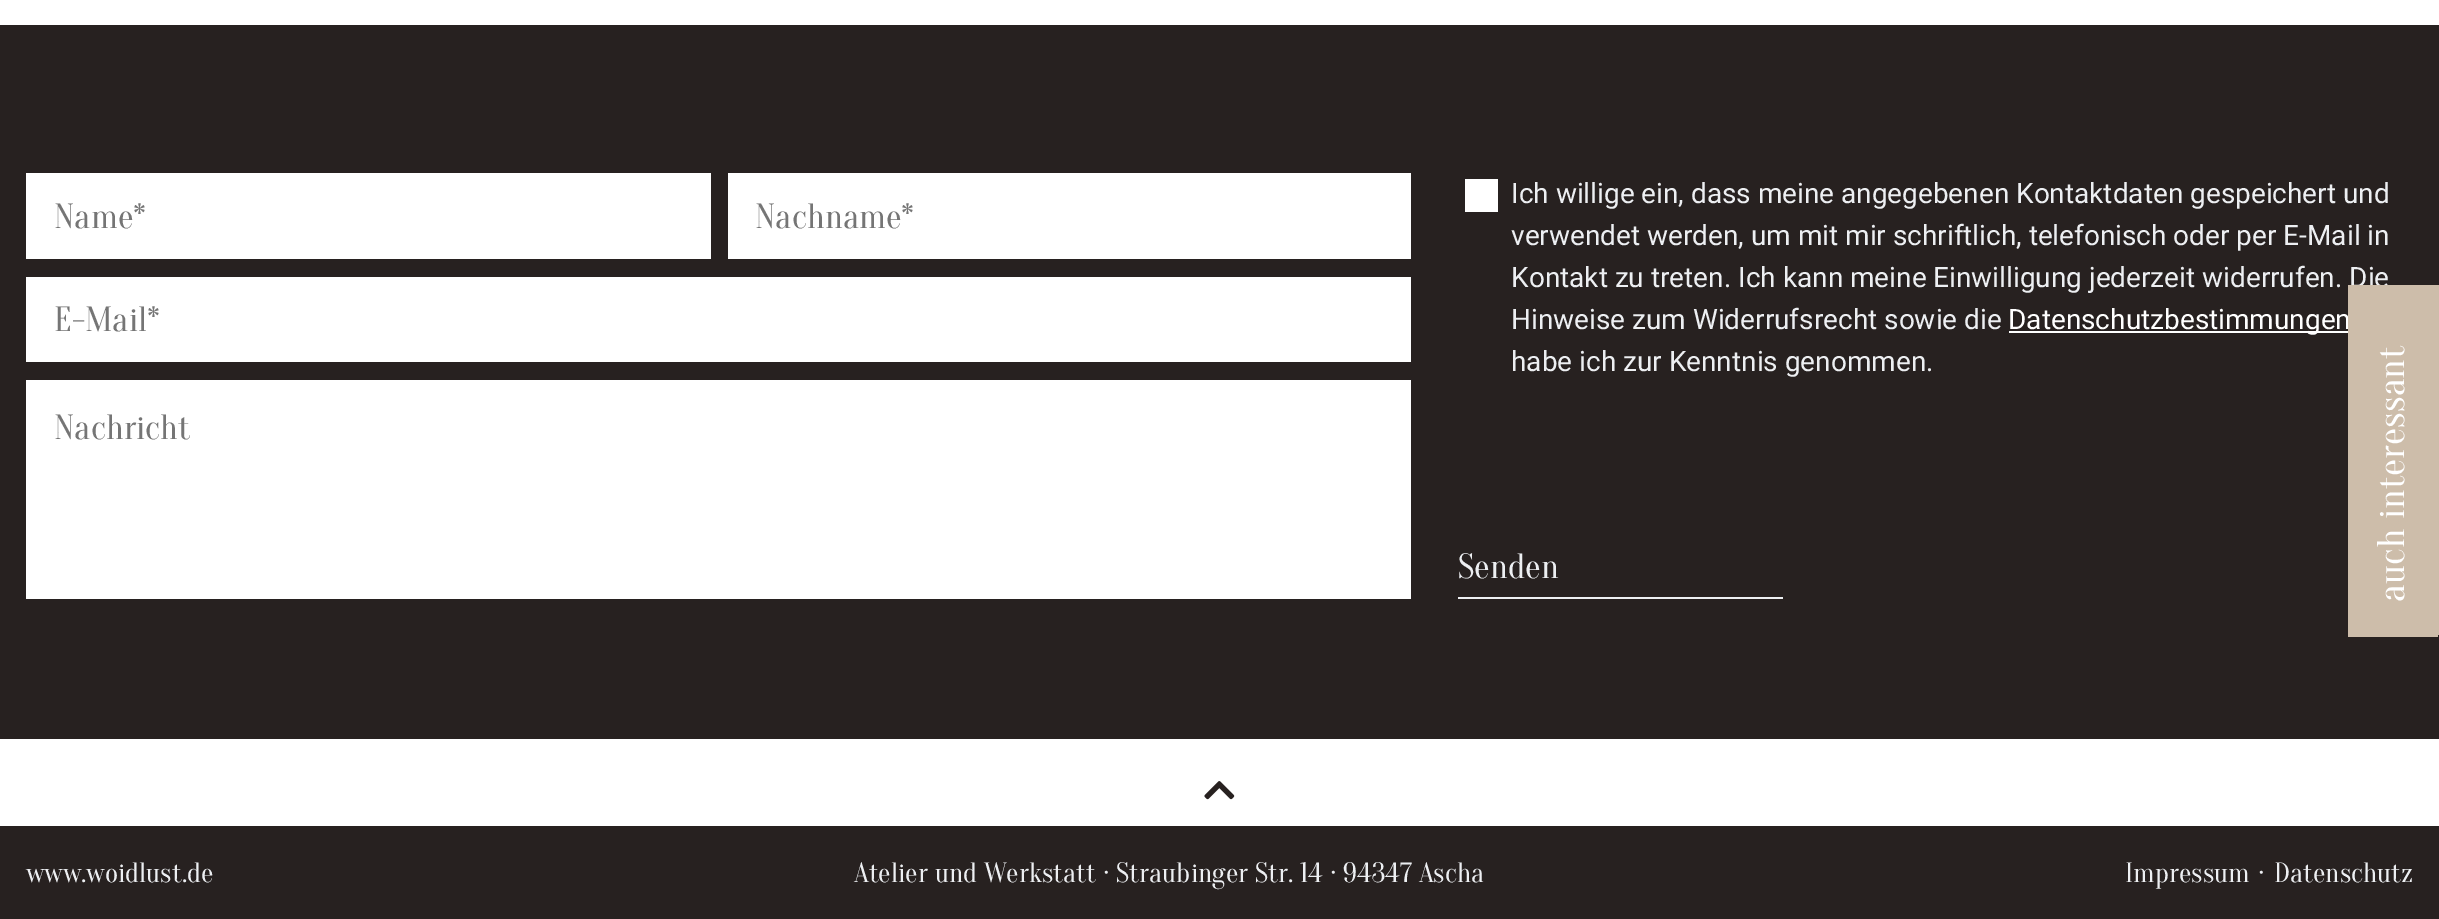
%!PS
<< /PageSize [2439 919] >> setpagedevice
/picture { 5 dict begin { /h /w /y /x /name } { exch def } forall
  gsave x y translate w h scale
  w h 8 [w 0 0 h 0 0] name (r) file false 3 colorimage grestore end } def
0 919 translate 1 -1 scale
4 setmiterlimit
1 setgray
0 0 2439 919 rectfill
0.153 0.129 0.125 setrgbcolor
0 25 2439 714 rectfill
1 setgray
26 173 685 86 rectfill
/Oranienbaum-Regular [35 0 0 -35 0 0] selectfont
0.459 setgray
54 228 moveto (Name*) show
1 setgray
728 173 683 86 rectfill
0.459 setgray
755 228 moveto (Nachname*) show
1 setgray
26 277 1385 85 rectfill
0.459 setgray
54 331 moveto (E-Mail*) show
1 setgray
26 380 1385 219 rectfill
0.459 setgray
54 439 moveto (Nachricht) show
1 setgray
1465 179 33 33 rectfill
/Roboto-Regular [28 0 0 -28 0 0] selectfont
0.929 0.937 0.949 setrgbcolor
1511 203 moveto (Ich willige ein, dass meine angegebenen Kontaktdaten gespeichert und) show
1511 245 moveto (verwendet werden, um mit mir schriftlich, telefonisch oder per E-Mail in) show
1511 287 moveto (Kontakt zu treten. Ich kann meine Einwilligung jederzeit widerrufen. Die) show
1511 329 moveto (Hinweise zum Widerrufsrecht sowie die) show
1 setgray
2009 331 343 2 rectfill
2008 329 moveto (Datenschutzbestimmungen) show
0.929 0.937 0.949 setrgbcolor
1511 371 moveto (habe ich zur Kenntnis genommen.) show
1458 597 325 2 rectfill
/Oranienbaum-Regular [35 0 0 -35 0 0] selectfont
1458 578 moveto (Senden) show
0.804 0.741 0.667 setrgbcolor
2348 285 90 352 rectfill
/Oranienbaum-Regular [38.5 0 0 -38.5 0 0] selectfont
1 setgray
gsave 2404 602 translate -90 rotate 0 0 moveto (auch interessant) show grestore
0.804 0.741 0.667 setrgbcolor
2438 285 1 350 rectfill
0.153 0.129 0.125 setrgbcolor
0 826 2439 93 rectfill
(img1.rgb) 1204 781 31 19 picture
/Oranienbaum-Regular [28 0 0 -28 0 0] selectfont
0.929 0.937 0.949 setrgbcolor
26 882 moveto (www.woidlust.de) show
854 882 moveto (Atelier und Werkstatt · Straubinger Str. 14 · 94347 Ascha) show
2125 882 moveto (Impressum) show
2258 882 moveto (·) show
2274 882 moveto (Datenschutz) show
showpage
